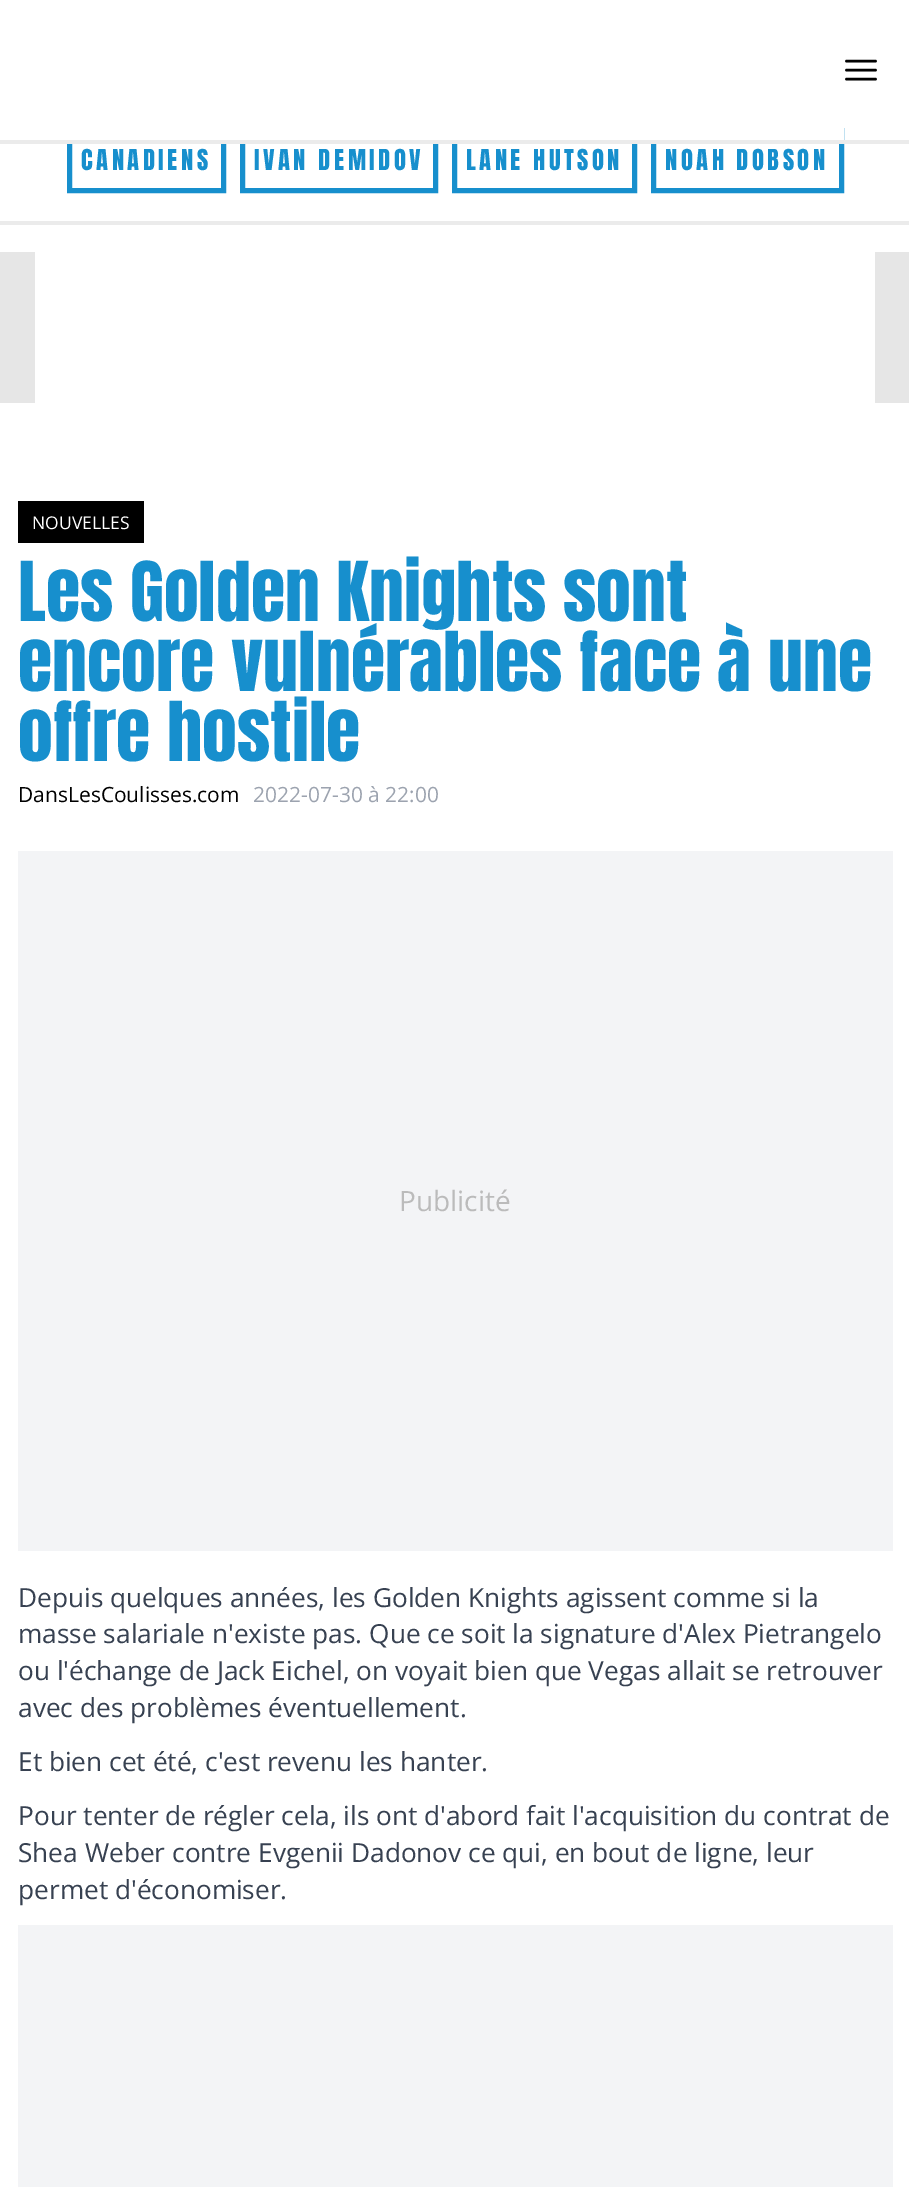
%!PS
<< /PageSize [909 2187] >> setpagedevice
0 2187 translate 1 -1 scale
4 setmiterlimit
1 setgray
0 0 909 2187 rectfill
0.09 0.561 0.804 setrgbcolor
5 setlinewidth
69.5 130.5 154 60 rectstroke
242.5 130.5 193 60 rectstroke
454.5 130.5 180 60 rectstroke
653.5 130.5 188 60 rectstroke
1 setgray
67 128 777 12 rectfill
0.922 setgray
0 140 909 4 rectfill
0 setgray
2.6 setlinewidth
1 setlinecap
1 setlinejoin
newpath 846.5 61 moveto 875.5 61 lineto 846.5 70 moveto 875.5 70 lineto 846.5 79 moveto 875.5 79 lineto stroke
0.922 setgray
0 221 909 4 rectfill
/Anton-Regular [24.5 0 0 -24.5 0 0] selectfont
0.09 0.561 0.804 setrgbcolor
81 170 moveto 3.5 0 (CANADIENS) ashow
254 170 moveto 3.5 0 (IVAN DEMIDOV) ashow
466 170 moveto 3.5 0 (LANE HUTSON) ashow
665 170 moveto 3.5 0 (NOAH DOBSON) ashow
0.902 setgray
0 252 35 151 rectfill
875 252 34 151 rectfill
0 setgray
18 501 126 42 rectfill
/OpenSans-Regular [17.5 0 0 -17.5 0 0] selectfont
1 setgray
32 529 moveto (NOUVELLES) show
/Anton-Regular [70 0 0 -70 0 0] selectfont
0.09 0.561 0.804 setrgbcolor
18 621 moveto (Les Golden Knights sont) show
18 691 moveto (encore vulnérables face à une) show
18 761 moveto (offre hostile) show
/OpenSans-Regular [21 0 0 -21 0 0] selectfont
0 setgray
18 802 moveto (DansLesCoulisses.com) show
0.612 0.639 0.686 setrgbcolor
253 802 moveto (2022-07-30 à 22:00) show
0.953 0.957 0.965 setrgbcolor
18 851 875 700 rectfill
/OpenSans-Regular [28 0 0 -28 0 0] selectfont
0.733 setgray
399 1211 moveto (Publicité) show
/OpenSans-Regular [26.25 0 0 -26.25 0 0] selectfont
0.216 0.255 0.318 setrgbcolor
18 1607 moveto (Depuis quelques années, les Golden Knights agissent comme si la) show
18 1643 moveto (masse salariale n'existe pas. Que ce soit la signature d'Alex Pietrangelo) show
18 1680 moveto (ou l'échange de Jack Eichel, on voyait bien que Vegas allait se retrouver) show
18 1717 moveto (avec des problèmes éventuellement.) show
18 1771 moveto (Et bien cet été, c'est revenu les hanter.) show
18 1825 moveto (Pour tenter de régler cela, ils ont d'abord fait l'acquisition du contrat de) show
18 1862 moveto (Shea Weber contre Evgenii Dadonov ce qui, en bout de ligne, leur) show
18 1899 moveto (permet d'économiser.) show
0.953 0.957 0.965 setrgbcolor
18 1925 875 262 rectfill
showpage
